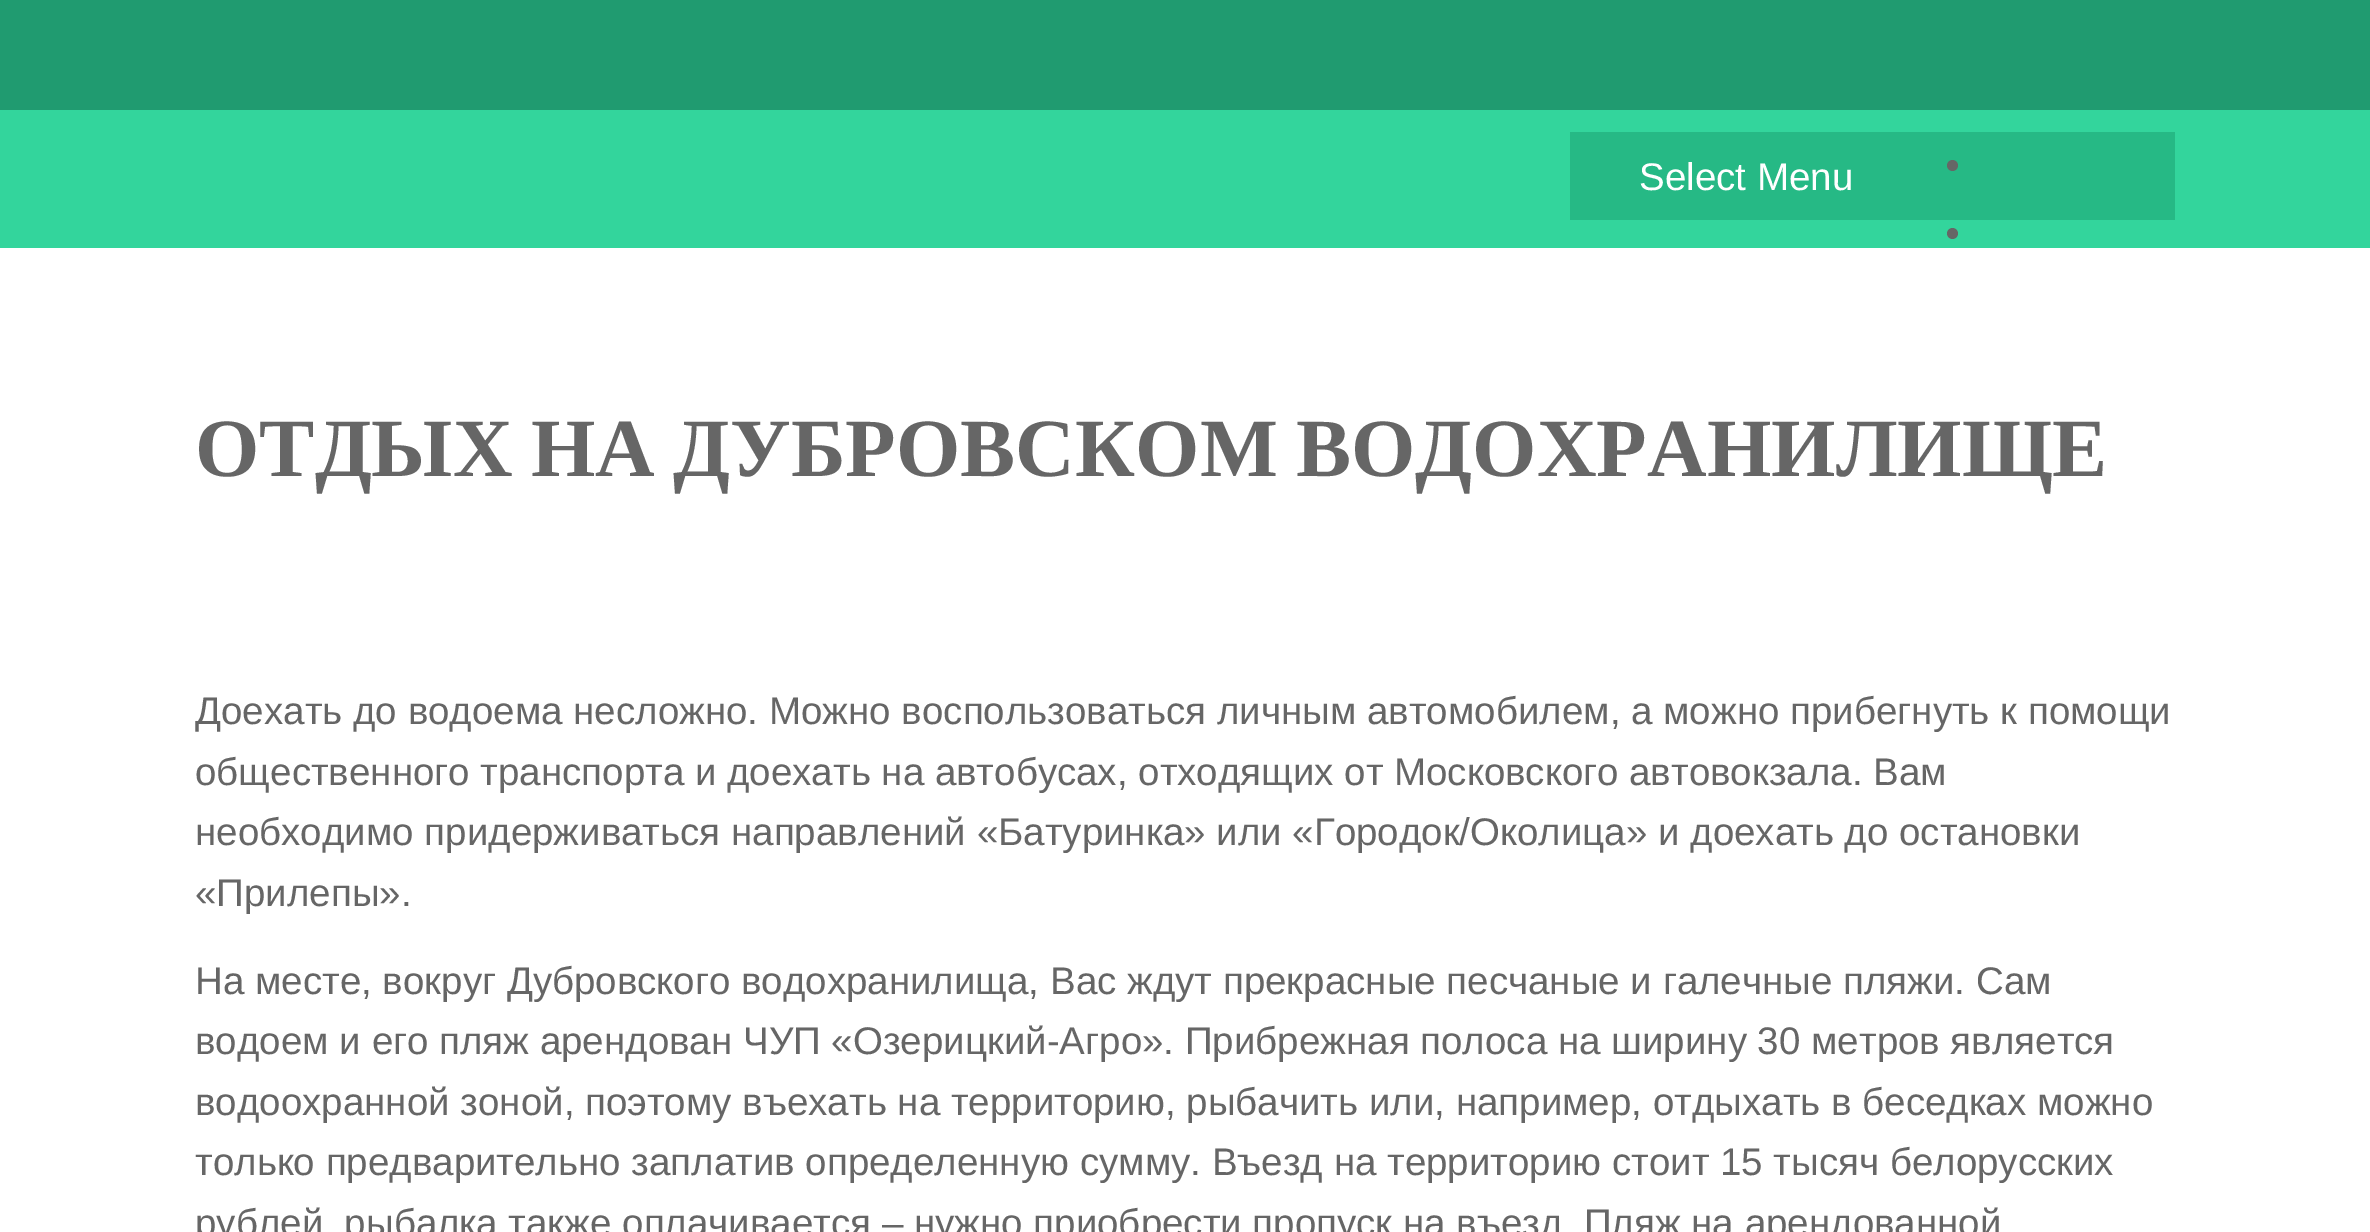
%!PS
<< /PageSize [2370 1232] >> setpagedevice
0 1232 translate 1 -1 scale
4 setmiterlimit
1 setgray
0 0 2370 1232 rectfill
0.125 0.608 0.439 setrgbcolor
0 0 2370 110 rectfill
0.2 0.835 0.612 setrgbcolor
0 110 2370 138 rectfill
0.149 0.725 0.522 setrgbcolor
1570 132 605 88 rectfill
/LiberationSans-Regular [38.5 0 0 -38.5 0 0] selectfont
1 setgray
1639 190 moveto (Select Menu) show
0.4 setgray
newpath 1952.5 165.5 5.5 0 360 arc closepath fill
newpath 1952.5 233.5 5.5 0 360 arc closepath fill
/LiberationSerif-Bold [82.75 0 0 -82.75 0 0] selectfont
195 476 moveto -2.5 0 32 (ОТДЫХ НА ДУБРОВСКОМ ВОДОХРАНИЛИЩЕ) widthshow
/LiberationSans-Regular [38.5 0 0 -38.5 0 0] selectfont
195 724 moveto (Доехать до водоема несложно. Можно воспользоваться личным автомобилем, а можно прибегнуть к помощи) show
195 785 moveto (общественного транспорта и доехать на автобусах, отходящих от Московского автовокзала. Вам) show
195 845 moveto (необходимо придерживаться направлений «Батуринка» или «Городок/Околица» и доехать до остановки) show
195 906 moveto («Прилепы».) show
195 994 moveto (На месте, вокруг Дубровского водохранилища, Вас ждут прекрасные песчаные и галечные пляжи. Сам) show
195 1054 moveto (водоем и его пляж арендован ЧУП «Озерицкий-Агро». Прибрежная полоса на ширину 30 метров является) show
195 1115 moveto (водоохранной зоной, поэтому въехать на территорию, рыбачить или, например, отдыхать в беседках можно) show
195 1175 moveto (только предварительно заплатив определенную сумму. Въезд на территорию стоит 15 тысяч белорусских) show
195 1236 moveto (рублей, рыбалка также оплачивается – нужно приобрести пропуск на въезд. Пляж на арендованной) show
showpage
